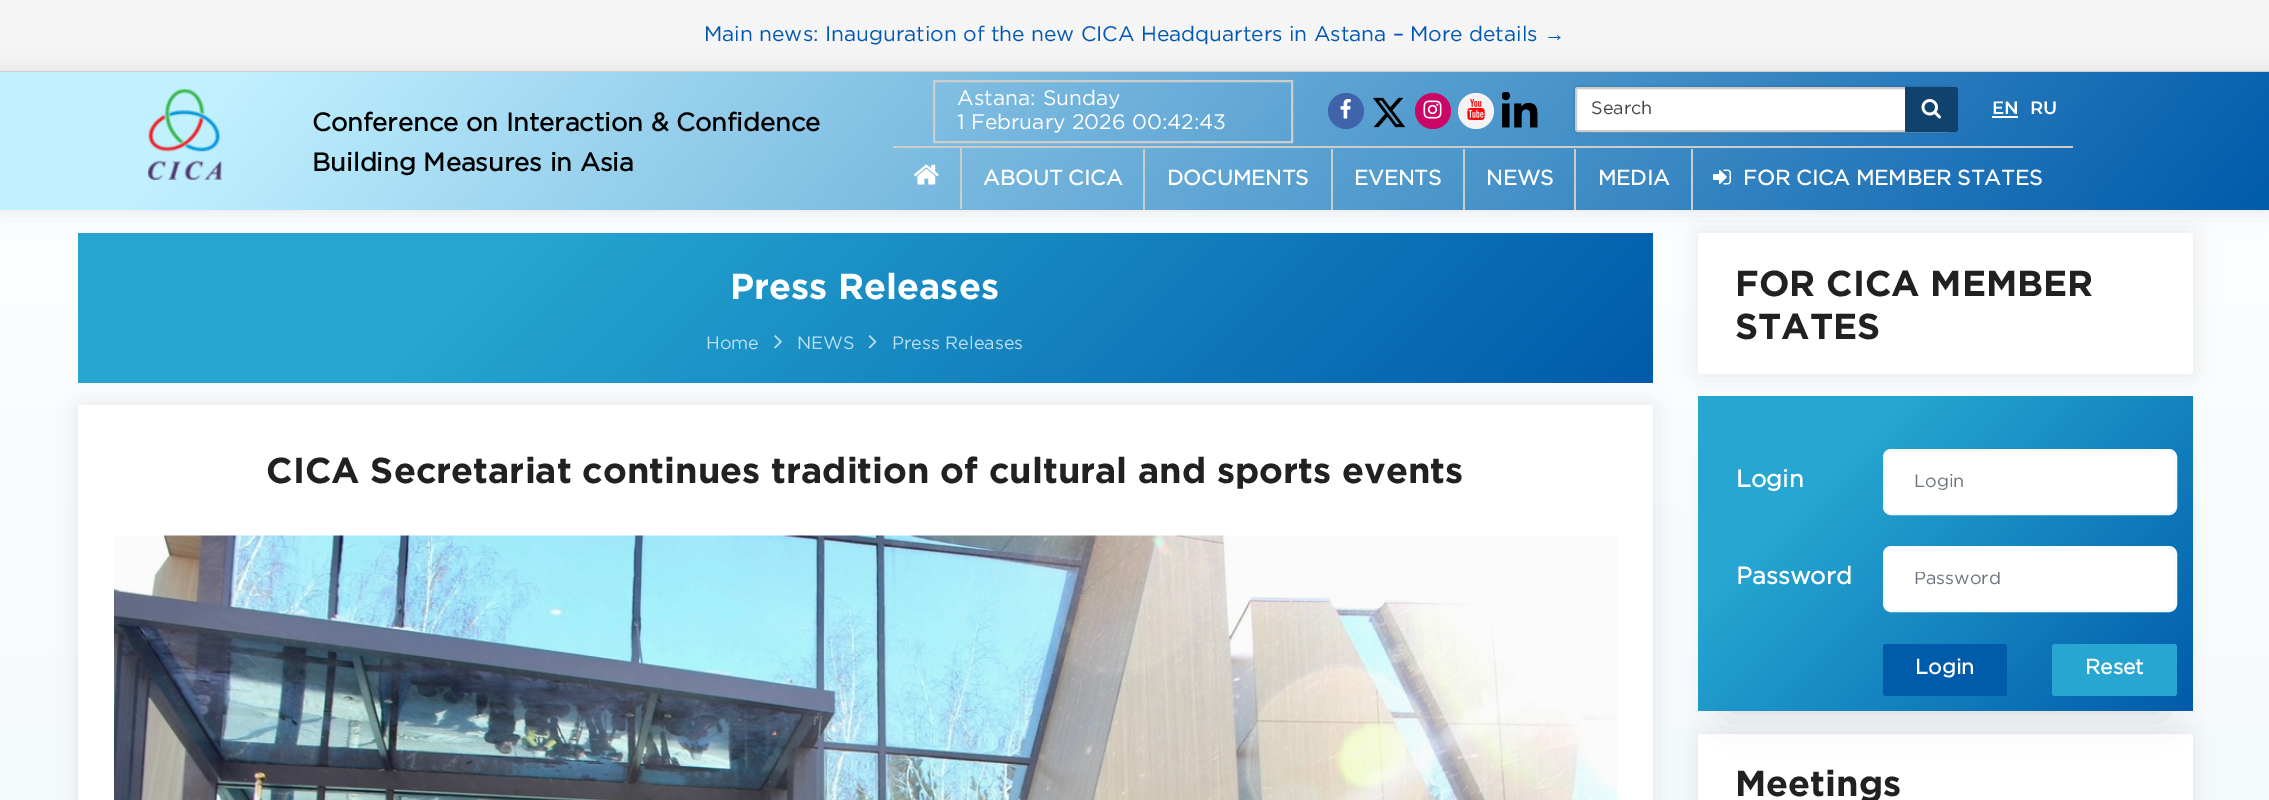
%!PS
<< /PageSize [2269 800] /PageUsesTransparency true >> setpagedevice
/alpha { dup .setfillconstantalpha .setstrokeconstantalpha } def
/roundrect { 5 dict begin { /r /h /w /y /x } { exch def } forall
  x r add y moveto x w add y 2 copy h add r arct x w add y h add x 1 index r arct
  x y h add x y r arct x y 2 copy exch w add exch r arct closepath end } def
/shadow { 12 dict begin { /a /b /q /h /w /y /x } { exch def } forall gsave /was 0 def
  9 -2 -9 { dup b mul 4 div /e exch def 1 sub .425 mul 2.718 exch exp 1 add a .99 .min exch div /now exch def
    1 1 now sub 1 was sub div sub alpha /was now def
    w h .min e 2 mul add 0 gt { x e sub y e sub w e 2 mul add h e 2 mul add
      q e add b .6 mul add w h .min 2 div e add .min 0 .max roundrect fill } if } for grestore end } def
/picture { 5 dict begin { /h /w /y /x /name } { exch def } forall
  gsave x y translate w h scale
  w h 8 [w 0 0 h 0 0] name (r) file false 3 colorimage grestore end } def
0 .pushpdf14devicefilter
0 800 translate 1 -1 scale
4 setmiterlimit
1 setgray
0 0 2269 800 rectfill
gsave newpath 0 210 moveto 2269 210 lineto 2269 800 lineto 0 800 lineto closepath clip newpath
<< /ShadingType 2 /ColorSpace /DeviceRGB /Coords [1135 0 1135 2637] /Extend [true true] /Function << /FunctionType 2 /Domain [0 1] /C0 [1 1 1] /C1 [0.871 0.929 0.98] /N 1 >> >> shfill grestore
0.961 setgray
0 0 2269 71 rectfill
0.867 setgray
0 71 2269 1 rectfill
/Gotham-Regular [21 0 0 -21 0 0] selectfont
0 0.337 0.702 setrgbcolor
704 41 moveto (Main news: Inauguration of the new CICA Headquarters in Astana – More details) show
/LiberationSans-Regular [21 0 0 -21 0 0] selectfont
1544 41 moveto (→) show
0.2 setgray
78 405 1575 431 3 11 0.1 shadow
gsave 78 233 1575 150 3 roundrect clip newpath
<< /ShadingType 2 /ColorSpace /DeviceRGB /Coords [1297 739 434 -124] /Extend [true true] /Function << /FunctionType 3 /Domain [0 1] /Functions [<< /FunctionType 2 /Domain [0 1] /C0 [0 0.357 0.667] /C1 [0.149 0.651 0.82] /N 1 >> << /FunctionType 2 /Domain [0 1] /C0 [0.149 0.651 0.82] /C1 [0.149 0.651 0.82] /N 1 >>] /Bounds [0.74] /Encode [0 1 0 1] >> >> shfill grestore
1698 233 495 141 3 11 0.1 shadow
1 setgray
1698 233 495 141 3 roundrect fill
0.302 0.322 0.369 setrgbcolor
0 72 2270 138 0 10 0.15 shadow
gsave newpath 0 72 moveto 2269 72 lineto 2269 210 lineto 0 210 lineto closepath clip newpath
<< /ShadingType 2 /ColorSpace /DeviceRGB /Coords [1835 728 435 -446] /Extend [true true] /Function << /FunctionType 3 /Domain [0 1] /Functions [<< /FunctionType 2 /Domain [0 1] /C0 [0 0.357 0.667] /C1 [0.757 0.945 1] /N 1 >> << /FunctionType 2 /Domain [0 1] /C0 [0.757 0.945 1] /C1 [0.757 0.945 1] /N 1 >>] /Bounds [0.9] /Encode [0 1 0 1] >> >> shfill grestore
(img1.rgb) 147 89 75 91 picture
/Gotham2-Bold [25.5 0 0 -25.5 0 0] selectfont
0 setgray
312 131 moveto (Conference on Interaction & Confidence) show
312 171 moveto (Building Measures in Asia) show
0.8 setgray
2 setlinewidth
934 81 358 61 rectstroke
/Gotham-Regular [21 0 0 -21 0 0] selectfont
1 setgray
957 105 moveto (Astana:) show
1043 105 moveto (Sunday) show
957 129 moveto (1 February 2026 00:42:43) show
0.251 0.392 0.675 setrgbcolor
newpath 1346 111 18 0 360 arc closepath fill
(img2.rgb) 1340 99 11 20 picture
(img3.rgb) 1373 97 33 31 picture
0.792 0.027 0.404 setrgbcolor
newpath 1433 111 18 0 360 arc closepath fill
(img4.rgb) 1423 100 19 19 picture
0.961 0.949 0.957 setrgbcolor
newpath 1476 111 18 0 360 arc closepath fill
(img5.rgb) 1467 99 18 21 picture
(img6.rgb) 1502 92 36 36 picture
0 setgray
1575 87 375 45 3 1.5 0.2 shadow
1 setgray
1576 88 373 43 2 roundrect gsave fill grestore
0.8 setgray
stroke
/Gotham-Regular [18 0 0 -18 0 0] selectfont
0.271 setgray
1591 114 moveto (Search) show
0.063 0.259 0.427 setrgbcolor
newpath 1905 87 moveto 1955 87 lineto 1956.5 87 1958 88.5 1958 90 curveto 1958 129 lineto 1958 130.5 1956.5 132 1955 132 curveto 1905 132 lineto closepath fill
(img7.rgb) 1921 99 20 20 picture
/Montserrat-SemiBold [18 0 0 -18 0 0] selectfont
1 setgray
1992 114 moveto (EN) show
1992 116 26 2 rectfill
2030 114 moveto (RU) show
0.8 setgray
893 146 1180 2 rectfill
960 147 2 62 rectfill
(img8.rgb) 914 164 25 21 picture
1143 149 2 61 rectfill
/Gotham2-Bold [21 0 0 -21 0 0] selectfont
1 setgray
983 185 moveto (ABOUT CICA) show
0.8 setgray
1331 149 2 61 rectfill
1 setgray
1167 185 moveto (DOCUMENTS) show
0.8 setgray
1463 149 2 61 rectfill
1 setgray
1354 185 moveto (EVENTS) show
0.8 setgray
1574 149 2 61 rectfill
1 setgray
1486 185 moveto (NEWS) show
0.8 setgray
1691 149 2 61 rectfill
1 setgray
1598 185 moveto (MEDIA) show
(img9.rgb) 1713 169 18 16 picture
1743 185 moveto (FOR CICA MEMBER STATES) show
/Gotham-Bold [36 0 0 -36 0 0] selectfont
730 299 moveto (Press Releases) show
/Gotham-Regular [18 0 0 -18 0 0] selectfont
0.733 0.875 0.933 setrgbcolor
706 349 moveto (Home) show
(img10.rgb) 774 335 8 14 picture
797 349 moveto (NEWS) show
(img11.rgb) 868 335 9 14 picture
892 349 moveto (Press Releases) show
1 setgray
78 405 1575 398 3 roundrect fill
/Gotham-Bold [36 0 0 -36 0 0] selectfont
0.137 0.125 0.125 setrgbcolor
266 483 moveto (CICA Secretariat continues tradition of cultural and sports events) show
(img12.rgb) 114 535 1503 265 picture
1735 296 moveto (FOR CICA MEMBER) show
1735 339 moveto (STATES) show
0.2 setgray
1698 734 495 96 3 11 0.1 shadow
1 setgray
1698 734 495 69 3 roundrect fill
0 setgray
1728 455 435 255 0 20 0.16 shadow
gsave 1698 396 495 315 3 roundrect clip newpath
<< /ShadingType 2 /ColorSpace /DeviceRGB /Coords [2148 756 1743 351] /Extend [true true] /Function << /FunctionType 3 /Domain [0 1] /Functions [<< /FunctionType 2 /Domain [0 1] /C0 [0 0.357 0.667] /C1 [0.149 0.651 0.82] /N 1 >> << /FunctionType 2 /Domain [0 1] /C0 [0.149 0.651 0.82] /C1 [0.149 0.651 0.82] /N 1 >>] /Bounds [0.74] /Encode [0 1 0 1] >> >> shfill grestore
/Gotham2-Bold [24 0 0 -24 0 0] selectfont
1 setgray
1736 487 moveto (Login) show
1884 450 292 64 7 roundrect gsave fill grestore
0.961 0.988 0.996 setrgbcolor
stroke
/Gotham-Regular [18 0 0 -18 0 0] selectfont
0.424 0.459 0.49 setrgbcolor
1914 487 moveto (Login) show
/Gotham2-Bold [24 0 0 -24 0 0] selectfont
1 setgray
1736 584 moveto (Password) show
1884 547 292 64 7 roundrect gsave fill grestore
0.961 0.988 0.996 setrgbcolor
stroke
gsave
1914 572 231 18 rectclip
/Gotham-Regular [18 0 0 -18 0 0] selectfont
0.424 0.459 0.49 setrgbcolor
1914 584 moveto (Password) show
grestore
0 0.357 0.667 setrgbcolor
1883 644 124 52 3 roundrect fill
/Gotham2-Bold [21 0 0 -21 0 0] selectfont
1 setgray
1915 674 moveto (Login) show
0.149 0.651 0.82 setrgbcolor
2052 644 125 52 3 roundrect fill
1 setgray
2085 674 moveto (Reset) show
/Gotham-Bold [36 0 0 -36 0 0] selectfont
0.137 0.125 0.125 setrgbcolor
1735 796 moveto (Meetings) show
.poppdf14devicefilter showpage
